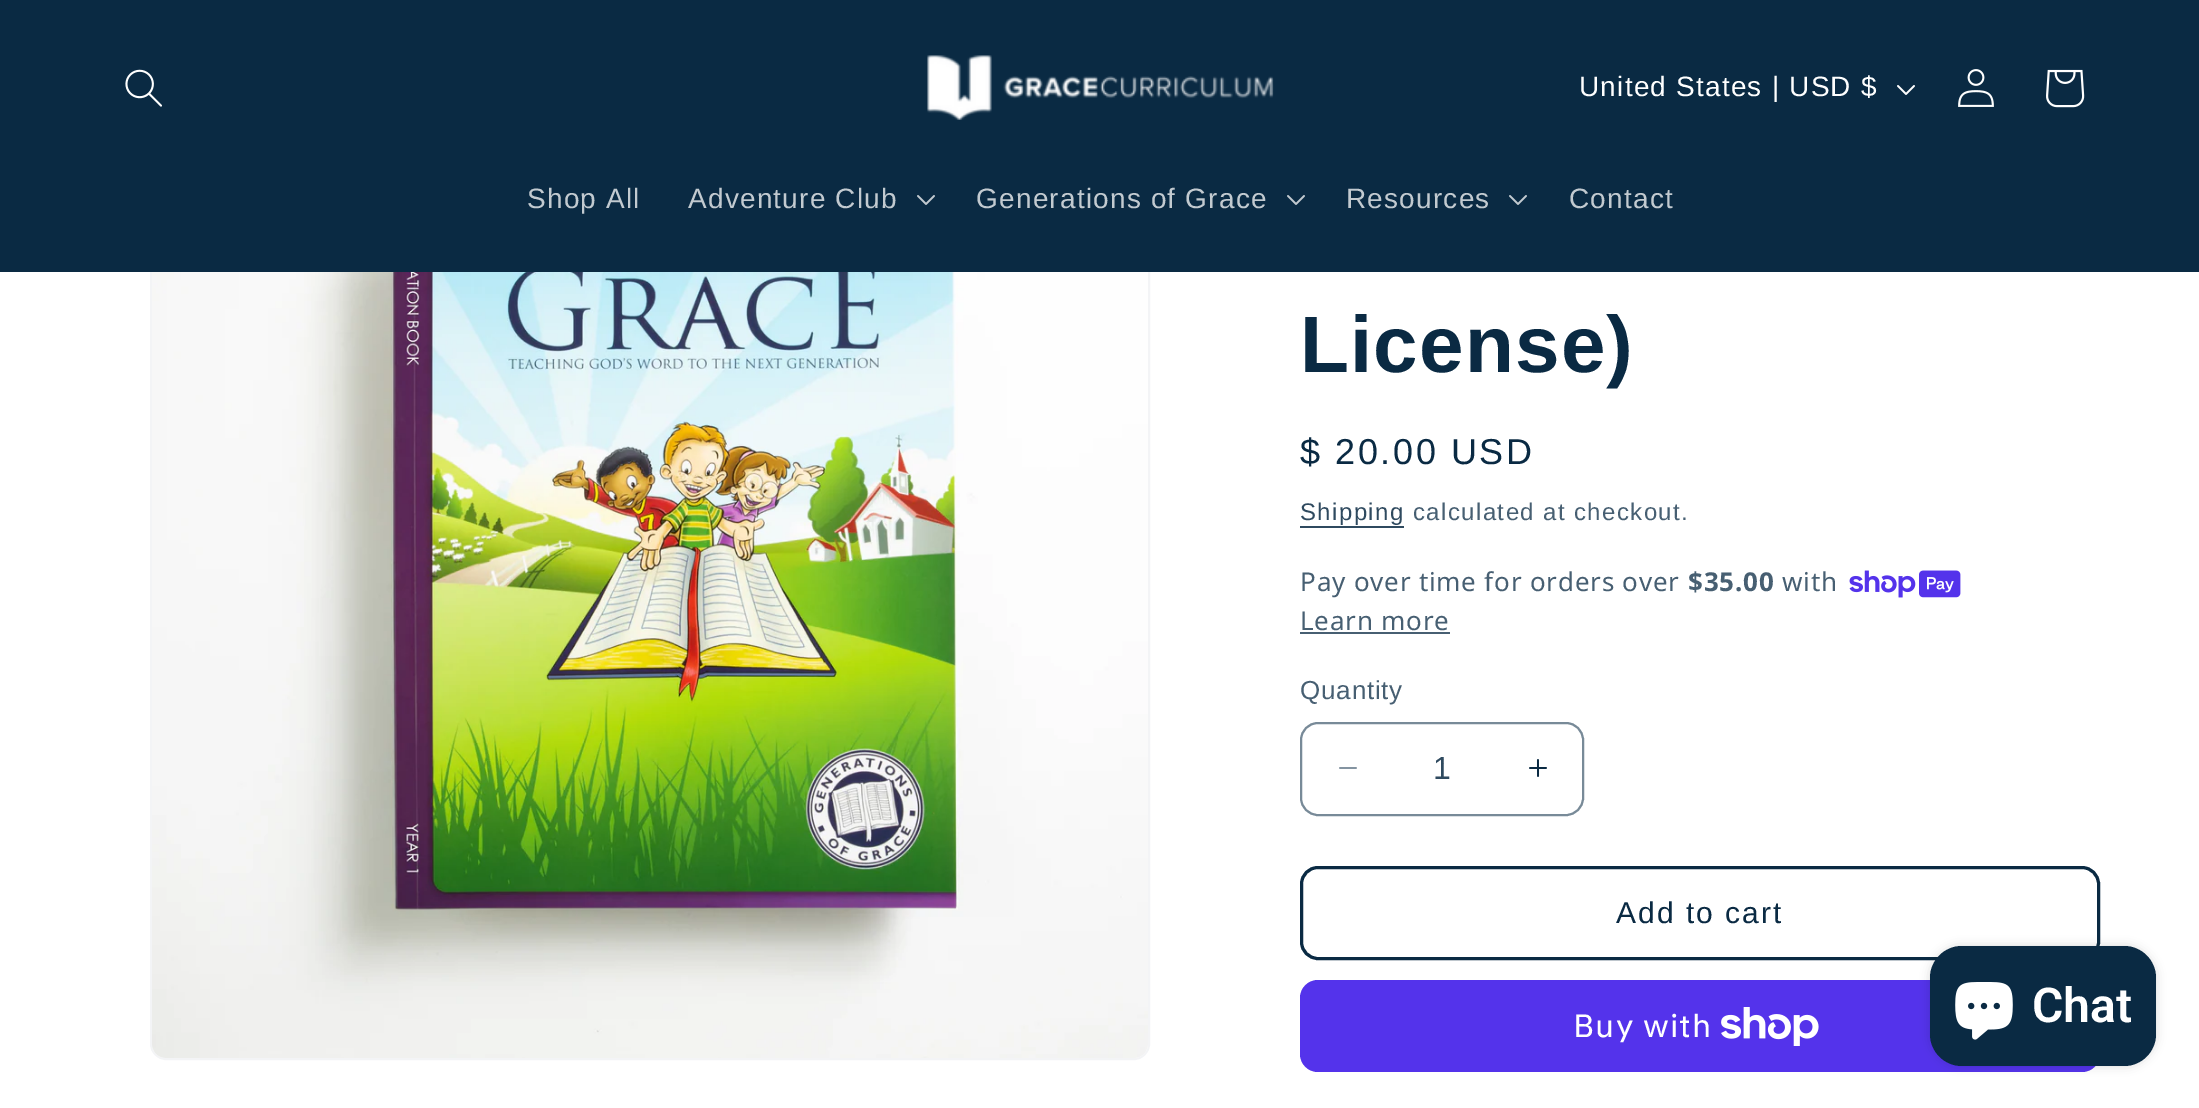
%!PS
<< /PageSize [2199 1108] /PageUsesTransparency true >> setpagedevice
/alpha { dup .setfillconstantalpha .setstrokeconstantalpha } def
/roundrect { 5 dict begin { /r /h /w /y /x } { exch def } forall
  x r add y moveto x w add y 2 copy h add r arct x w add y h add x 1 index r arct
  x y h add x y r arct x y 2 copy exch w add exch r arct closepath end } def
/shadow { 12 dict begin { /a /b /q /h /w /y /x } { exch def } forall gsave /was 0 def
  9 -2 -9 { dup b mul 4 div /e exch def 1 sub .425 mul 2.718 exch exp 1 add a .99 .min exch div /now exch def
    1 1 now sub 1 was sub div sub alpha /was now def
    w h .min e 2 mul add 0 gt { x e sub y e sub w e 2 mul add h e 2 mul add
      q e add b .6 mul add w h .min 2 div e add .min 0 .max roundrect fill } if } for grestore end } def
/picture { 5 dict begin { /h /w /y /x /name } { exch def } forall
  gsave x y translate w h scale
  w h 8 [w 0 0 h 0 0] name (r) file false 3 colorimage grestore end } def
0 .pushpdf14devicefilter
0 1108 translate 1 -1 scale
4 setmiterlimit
1 setgray
0 0 2199 1108 rectfill
0.953 0.957 0.965 setrgbcolor
2 setlinewidth
151 61 998 998 15 roundrect stroke
0.039 0.165 0.263 setrgbcolor
0 0 2199 272 rectfill
(img1.rgb) 125 69 37 38 picture
(img2.rgb) 927 55 347 65 picture
/LiberationSans-Regular [28 0 0 -28 0 0] selectfont
1 setgray
1579 96 moveto 1.2 0 (United States | USD $) ashow
(img3.rgb) 1897 85 18 10 picture
(img4.rgb) 1958 69 36 38 picture
(img5.rgb) 2046 69 39 39 picture
0.761 0.792 0.816 setrgbcolor
527 208 moveto 1.2 0 (Shop All) ashow
688 208 moveto 1.2 0 (Adventure Club) ashow
(img6.rgb) 917 195 18 10 picture
976 208 moveto 1.2 0 (Generations of Grace) ashow
(img6.rgb) 1287 195 18 10 picture
1346 208 moveto 1.2 0 (Resources) ashow
(img6.rgb) 1509 195 18 10 picture
1569 208 moveto 1.2 0 (Contact) ashow
(img7.rgb) 152 272 996 786 picture
/LiberationSans-Bold [80 0 0 -80 0 0] selectfont
0.039 0.165 0.263 setrgbcolor
1300 372 moveto 1.2 0 (License\)) ashow
/LiberationSans-Regular [36 0 0 -36 0 0] selectfont
1300 464 moveto 2.6 0 ($ 20.00 USD) ashow
/LiberationSans-Regular [24 0 0 -24 0 0] selectfont
0.184 0.29 0.373 setrgbcolor
1300 520 moveto 1.4 0 (Shipping) ashow
1300 526 104 2 rectfill
0.278 0.373 0.447 setrgbcolor
1413 520 moveto 1.4 0 (calculated at checkout.) ashow
/NotoSans-Regular [26 0 0 -26 0 0] selectfont
1300 591 moveto 0.8 0 (Pay over time for orders over) ashow
/NotoSans-Bold [26 0 0 -26 0 0] selectfont
1688 591 moveto 0.8 0 ($35.00) ashow
/NotoSans-Regular [26 0 0 -26 0 0] selectfont
1782 591 moveto 0.8 0 (with) ashow
(img8.rgb) 1849 570 112 28 picture
1300 630 moveto 0.8 0 (Learn more) ashow
1300 632 150 2 rectfill
/LiberationSans-Regular [26 0 0 -26 0 0] selectfont
1300 699 moveto 0.8 0 (Quantity) ashow
(img9.rgb) 1339 767 18 2 picture
(img10.rgb) 1529 759 18 18 picture
0.471 0.541 0.596 setrgbcolor
1301 723 282 92 17 roundrect stroke
/LiberationSans-Regular [32 0 0 -32 0 0] selectfont
0.184 0.29 0.373 setrgbcolor
1433 779 moveto (1) show
0.039 0.165 0.263 setrgbcolor
3 setlinewidth
1301.5 867.5 797 91 16.5 roundrect stroke
/LiberationSans-Regular [30 0 0 -30 0 0] selectfont
1616 923 moveto 2 0 (Add to cart) ashow
0.329 0.2 0.922 setrgbcolor
1300 980 800 92 18 roundrect fill
/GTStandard-Regular [32 0 0 -32 0 0] selectfont
1 setgray
1573 1037 moveto 1.2 0 (Buy with) ashow
(img11.rgb) 1721 1007 98 39 picture
0 setgray
1930 946 226 120 32 5 0.15 shadow
0.039 0.165 0.263 setrgbcolor
1930 946 226 120 32 roundrect fill
(img12.rgb) 1955 982 58 58 picture
/Roboto-SemiBold [48 0 0 -48 0 0] selectfont
1 setgray
2032 1022 moveto (Chat) show
.poppdf14devicefilter showpage
